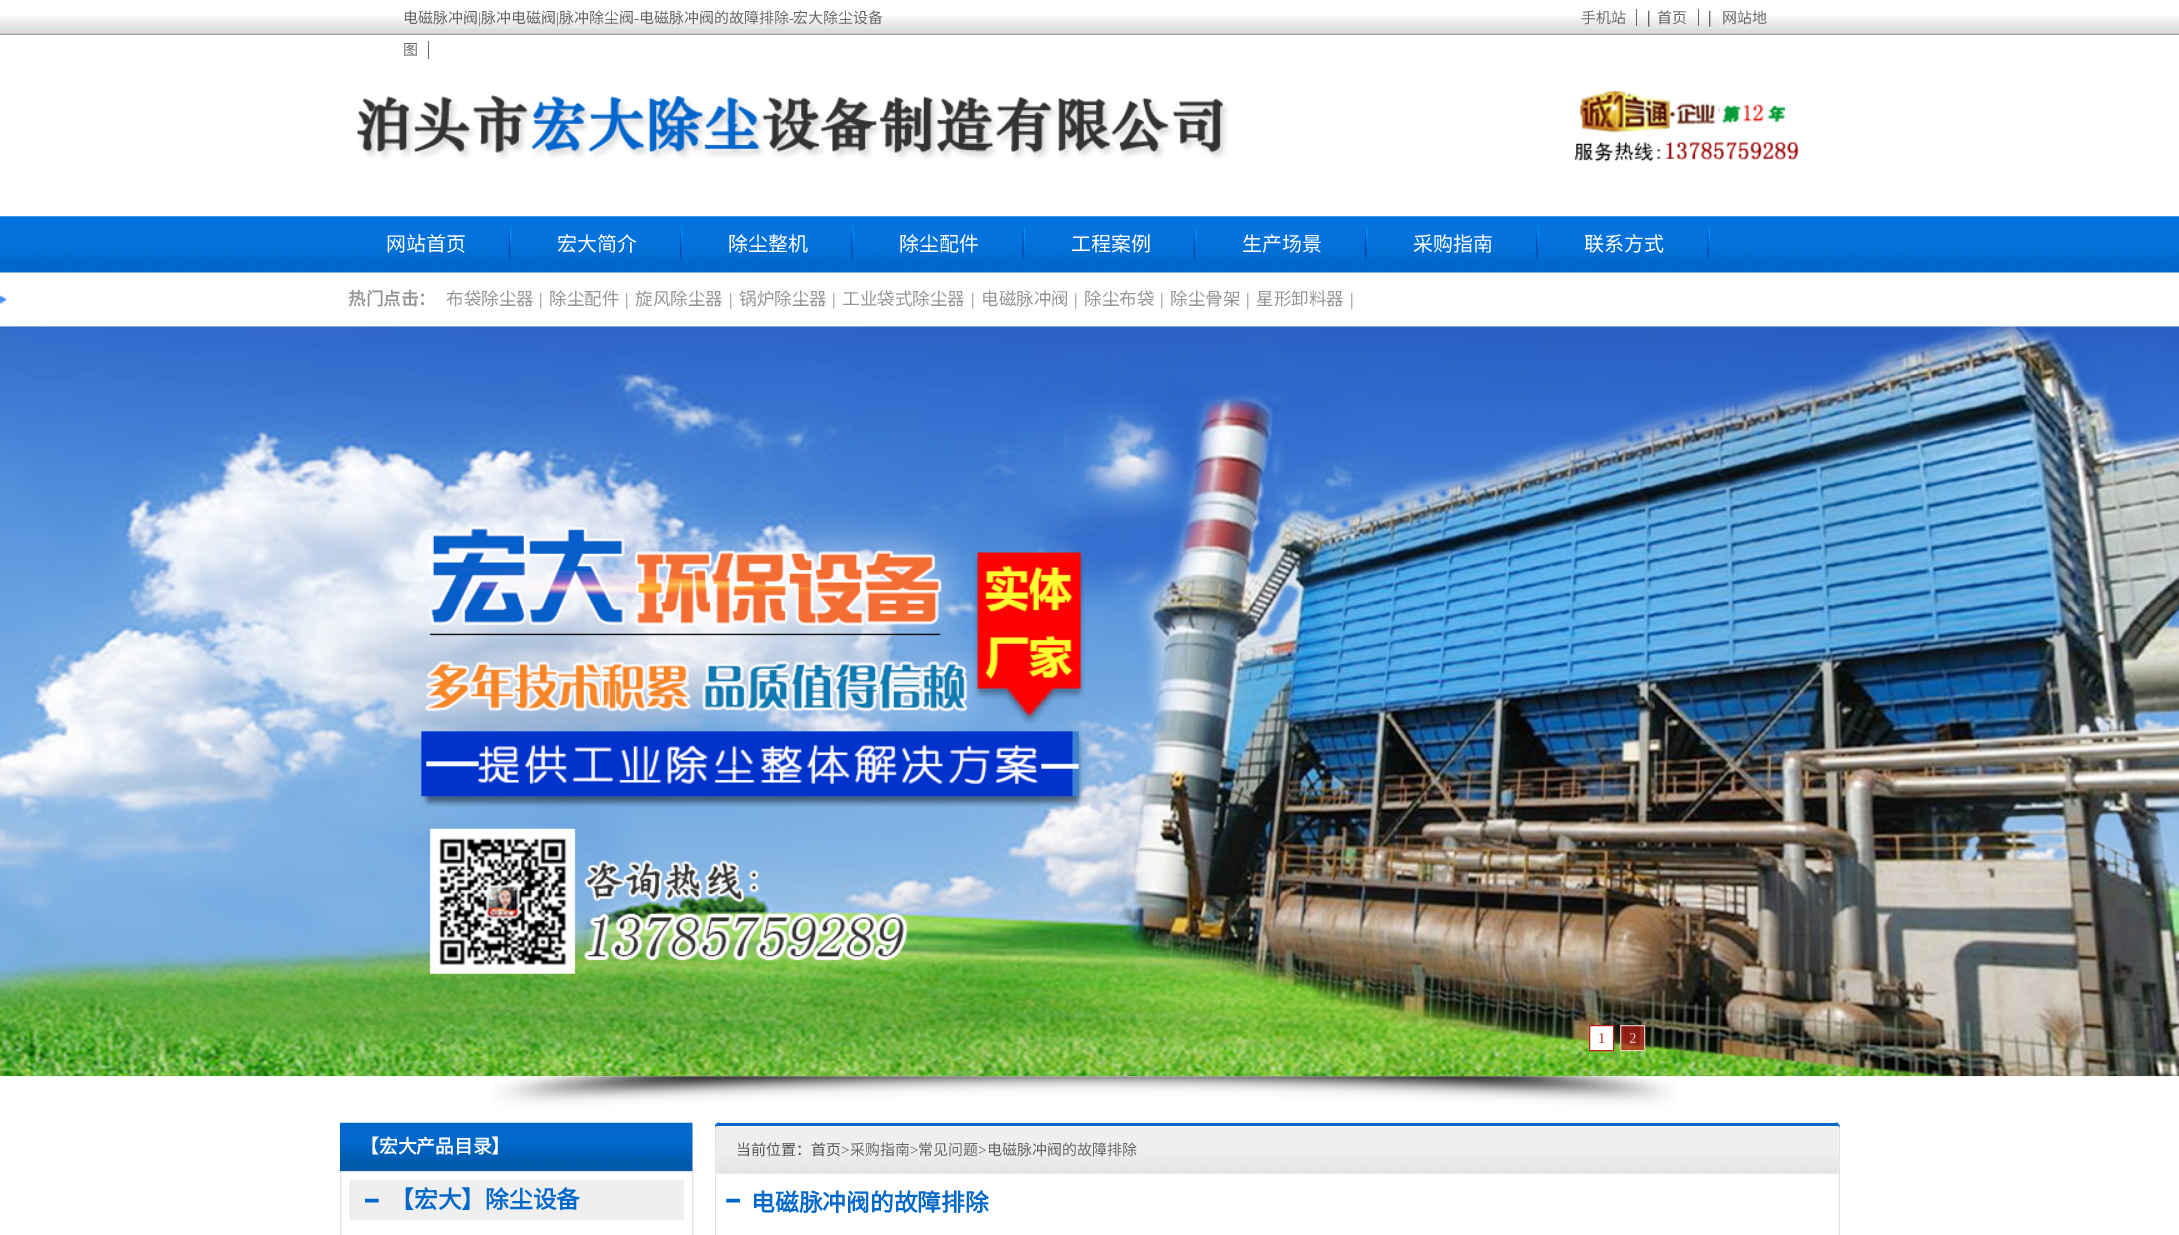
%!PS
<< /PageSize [2179 1235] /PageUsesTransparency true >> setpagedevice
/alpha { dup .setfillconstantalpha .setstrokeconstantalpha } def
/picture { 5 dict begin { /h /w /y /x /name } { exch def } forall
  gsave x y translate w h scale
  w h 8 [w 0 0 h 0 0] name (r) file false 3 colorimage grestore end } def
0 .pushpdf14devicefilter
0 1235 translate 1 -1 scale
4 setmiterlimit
1 setgray
0 0 2179 1235 rectfill
(img1.rgb) 0 16 2179 19 picture
/NotoSansCJKSC-Regular [15 0 0 -15 0 0] selectfont
0.404 setgray
403 23 moveto (电磁脉冲阀) show
/LiberationSerif-Regular [15 0 0 -15 0 0] selectfont
478 23 moveto (|) show
/NotoSansCJKSC-Regular [15 0 0 -15 0 0] selectfont
481 23 moveto (脉冲电磁阀) show
/LiberationSerif-Regular [15 0 0 -15 0 0] selectfont
556 23 moveto (|) show
/NotoSansCJKSC-Regular [15 0 0 -15 0 0] selectfont
559 23 moveto (脉冲除尘阀) show
/LiberationSerif-Regular [15 0 0 -15 0 0] selectfont
634 23 moveto (-) show
/NotoSansCJKSC-Regular [15 0 0 -15 0 0] selectfont
639 23 moveto (电磁脉冲阀的故障排除) show
/LiberationSerif-Regular [15 0 0 -15 0 0] selectfont
789 23 moveto (-) show
/NotoSansCJKSC-Regular [15 0 0 -15 0 0] selectfont
793 23 moveto (宏大除尘设备) show
1581 23 moveto (手机站) show
1636 9 1 17 rectfill
/LiberationSerif-Regular [17.5 0 0 -17.5 0 0] selectfont
0.2 setgray
1647 23 moveto (|) show
/NotoSansCJKSC-Regular [15 0 0 -15 0 0] selectfont
0.404 setgray
1657 23 moveto (首页) show
1698 9 1 17 rectfill
/LiberationSerif-Regular [17.5 0 0 -17.5 0 0] selectfont
0.2 setgray
1708 23 moveto (|) show
/NotoSansCJKSC-Regular [15 0 0 -15 0 0] selectfont
0.404 setgray
1722 23 moveto (网站地) show
403 55 moveto (图) show
428 41 1 18 rectfill
(img2.rgb) 357 95 872 65 picture
(img3.rgb) 1574 91 225 71 picture
(img4.rgb) 0 216 2179 57 picture
(img5.rgb) 508 227 4 34 picture
/NotoSansCJKSC-Regular [20 0 0 -20 0 0] selectfont
1 setgray
386 251 moveto (网站首页) show
(img6.rgb) 680 227 3 34 picture
557 251 moveto (宏大简介) show
(img7.rgb) 851 227 3 34 picture
728 251 moveto (除尘整机) show
(img8.rgb) 1022 227 3 34 picture
899 251 moveto (除尘配件) show
(img9.rgb) 1193 227 4 34 picture
1071 251 moveto (工程案例) show
(img10.rgb) 1365 227 3 34 picture
1242 251 moveto (生产场景) show
(img11.rgb) 1536 227 3 34 picture
1413 251 moveto (采购指南) show
(img12.rgb) 1707 227 3 34 picture
1584 251 moveto (联系方式) show
(img13.rgb) 0 295 7 9 picture
/NotoSansCJKSC-Bold [17.5 0 0 -17.5 0 0] selectfont
0.584 setgray
348 305 moveto (热门点击：) show
/NotoSansCJKSC-Regular [17.5 0 0 -17.5 0 0] selectfont
446 305 moveto (布袋除尘器) show
/LiberationSerif-Regular [17.5 0 0 -17.5 0 0] selectfont
539 305 moveto (|) show
/NotoSansCJKSC-Regular [17.5 0 0 -17.5 0 0] selectfont
549 305 moveto (除尘配件) show
/LiberationSerif-Regular [17.5 0 0 -17.5 0 0] selectfont
625 305 moveto (|) show
/NotoSansCJKSC-Regular [17.5 0 0 -17.5 0 0] selectfont
635 305 moveto (旋风除尘器) show
/LiberationSerif-Regular [17.5 0 0 -17.5 0 0] selectfont
729 305 moveto (|) show
/NotoSansCJKSC-Regular [17.5 0 0 -17.5 0 0] selectfont
739 305 moveto (锅炉除尘器) show
/LiberationSerif-Regular [17.5 0 0 -17.5 0 0] selectfont
832 305 moveto (|) show
/NotoSansCJKSC-Regular [17.5 0 0 -17.5 0 0] selectfont
842 305 moveto (工业袋式除尘器) show
/LiberationSerif-Regular [17.5 0 0 -17.5 0 0] selectfont
971 305 moveto (|) show
/NotoSansCJKSC-Regular [17.5 0 0 -17.5 0 0] selectfont
981 305 moveto (电磁脉冲阀) show
/LiberationSerif-Regular [17.5 0 0 -17.5 0 0] selectfont
1074 305 moveto (|) show
/NotoSansCJKSC-Regular [17.5 0 0 -17.5 0 0] selectfont
1084 305 moveto (除尘布袋) show
/LiberationSerif-Regular [17.5 0 0 -17.5 0 0] selectfont
1160 305 moveto (|) show
/NotoSansCJKSC-Regular [17.5 0 0 -17.5 0 0] selectfont
1170 305 moveto (除尘骨架) show
/LiberationSerif-Regular [17.5 0 0 -17.5 0 0] selectfont
1246 305 moveto (|) show
/NotoSansCJKSC-Regular [17.5 0 0 -17.5 0 0] selectfont
1256 305 moveto (星形卸料器) show
/LiberationSerif-Regular [17.5 0 0 -17.5 0 0] selectfont
1350 305 moveto (|) show
(img15.rgb) 493 1076 1183 33 picture
(img14.rgb) 0 326 2179 751 picture
1 setgray
newpath 1589.5 1025.5 moveto 1613.5 1025.5 lineto 1613.5 1050.5 lineto 1589.5 1050.5 lineto closepath gsave fill grestore
0.749 0.122 0.094 setrgbcolor
stroke
/LiberationSerif-Regular [15 0 0 -15 0 0] selectfont
1598 1043 moveto (1) show
0.7 alpha
1620 1025 25 26 rectfill
1 setgray
1620.5 1025.5 24 25 rectstroke
1 alpha
0.871 0.741 0.729 setrgbcolor
1629 1043 moveto (2) show
(img16.rgb) 340 1122 353 49 picture
/NotoSansCJKSC-Bold [18.75 0 0 -18.75 0 0] selectfont
1 setgray
360 1153 moveto (【宏大产品目录】) show
0.886 setgray
340.5 1171.5 352 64 rectstroke
0.937 setgray
349 1180 335 40 rectfill
(img17.rgb) 365 1198 14 5 picture
/NotoSansCJKSC-Bold [23.75 0 0 -23.75 0 0] selectfont
0.008 0.408 0.792 setrgbcolor
390 1208 moveto (【宏大】除尘设备) show
gsave
340 1123 1500 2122 rectclip
0.008 0.4 0.784 setrgbcolor
newpath 715 1122 moveto 1840 1122 lineto 1839 1126 lineto 716 1126 lineto closepath fill
grestore
0.886 setgray
newpath 1840 1122 moveto 1840 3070 lineto 1839 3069 lineto 1839 1126 lineto closepath fill
newpath 715 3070 moveto 715 1122 lineto 716 1126 lineto 716 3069 lineto closepath fill
(img20.rgb) 716 1126 1123 48 picture
(img18.rgb) 715 1122 5 6 picture
(img19.rgb) 1835 1122 5 6 picture
/NotoSansCJKSC-Regular [15 0 0 -15 0 0] selectfont
0.333 setgray
736 1155 moveto (当前位置：首页) show
/LiberationSerif-Regular [15 0 0 -15 0 0] selectfont
841 1155 moveto (>) show
/NotoSansCJKSC-Regular [15 0 0 -15 0 0] selectfont
0.404 setgray
850 1155 moveto (采购指南) show
/LiberationSerif-Regular [15 0 0 -15 0 0] selectfont
0.333 setgray
910 1155 moveto (>) show
/NotoSansCJKSC-Regular [15 0 0 -15 0 0] selectfont
0.404 setgray
918 1155 moveto (常见问题) show
/LiberationSerif-Regular [15 0 0 -15 0 0] selectfont
0.333 setgray
978 1155 moveto (>) show
/NotoSansCJKSC-Regular [15 0 0 -15 0 0] selectfont
0.404 setgray
987 1155 moveto (电磁脉冲阀的故障排除) show
(img21.rgb) 726 1198 14 5 picture
/NotoSansCJKSC-Bold [23.75 0 0 -23.75 0 0] selectfont
0.008 0.408 0.792 setrgbcolor
751 1211 moveto (电磁脉冲阀的故障排除) show
.poppdf14devicefilter showpage
